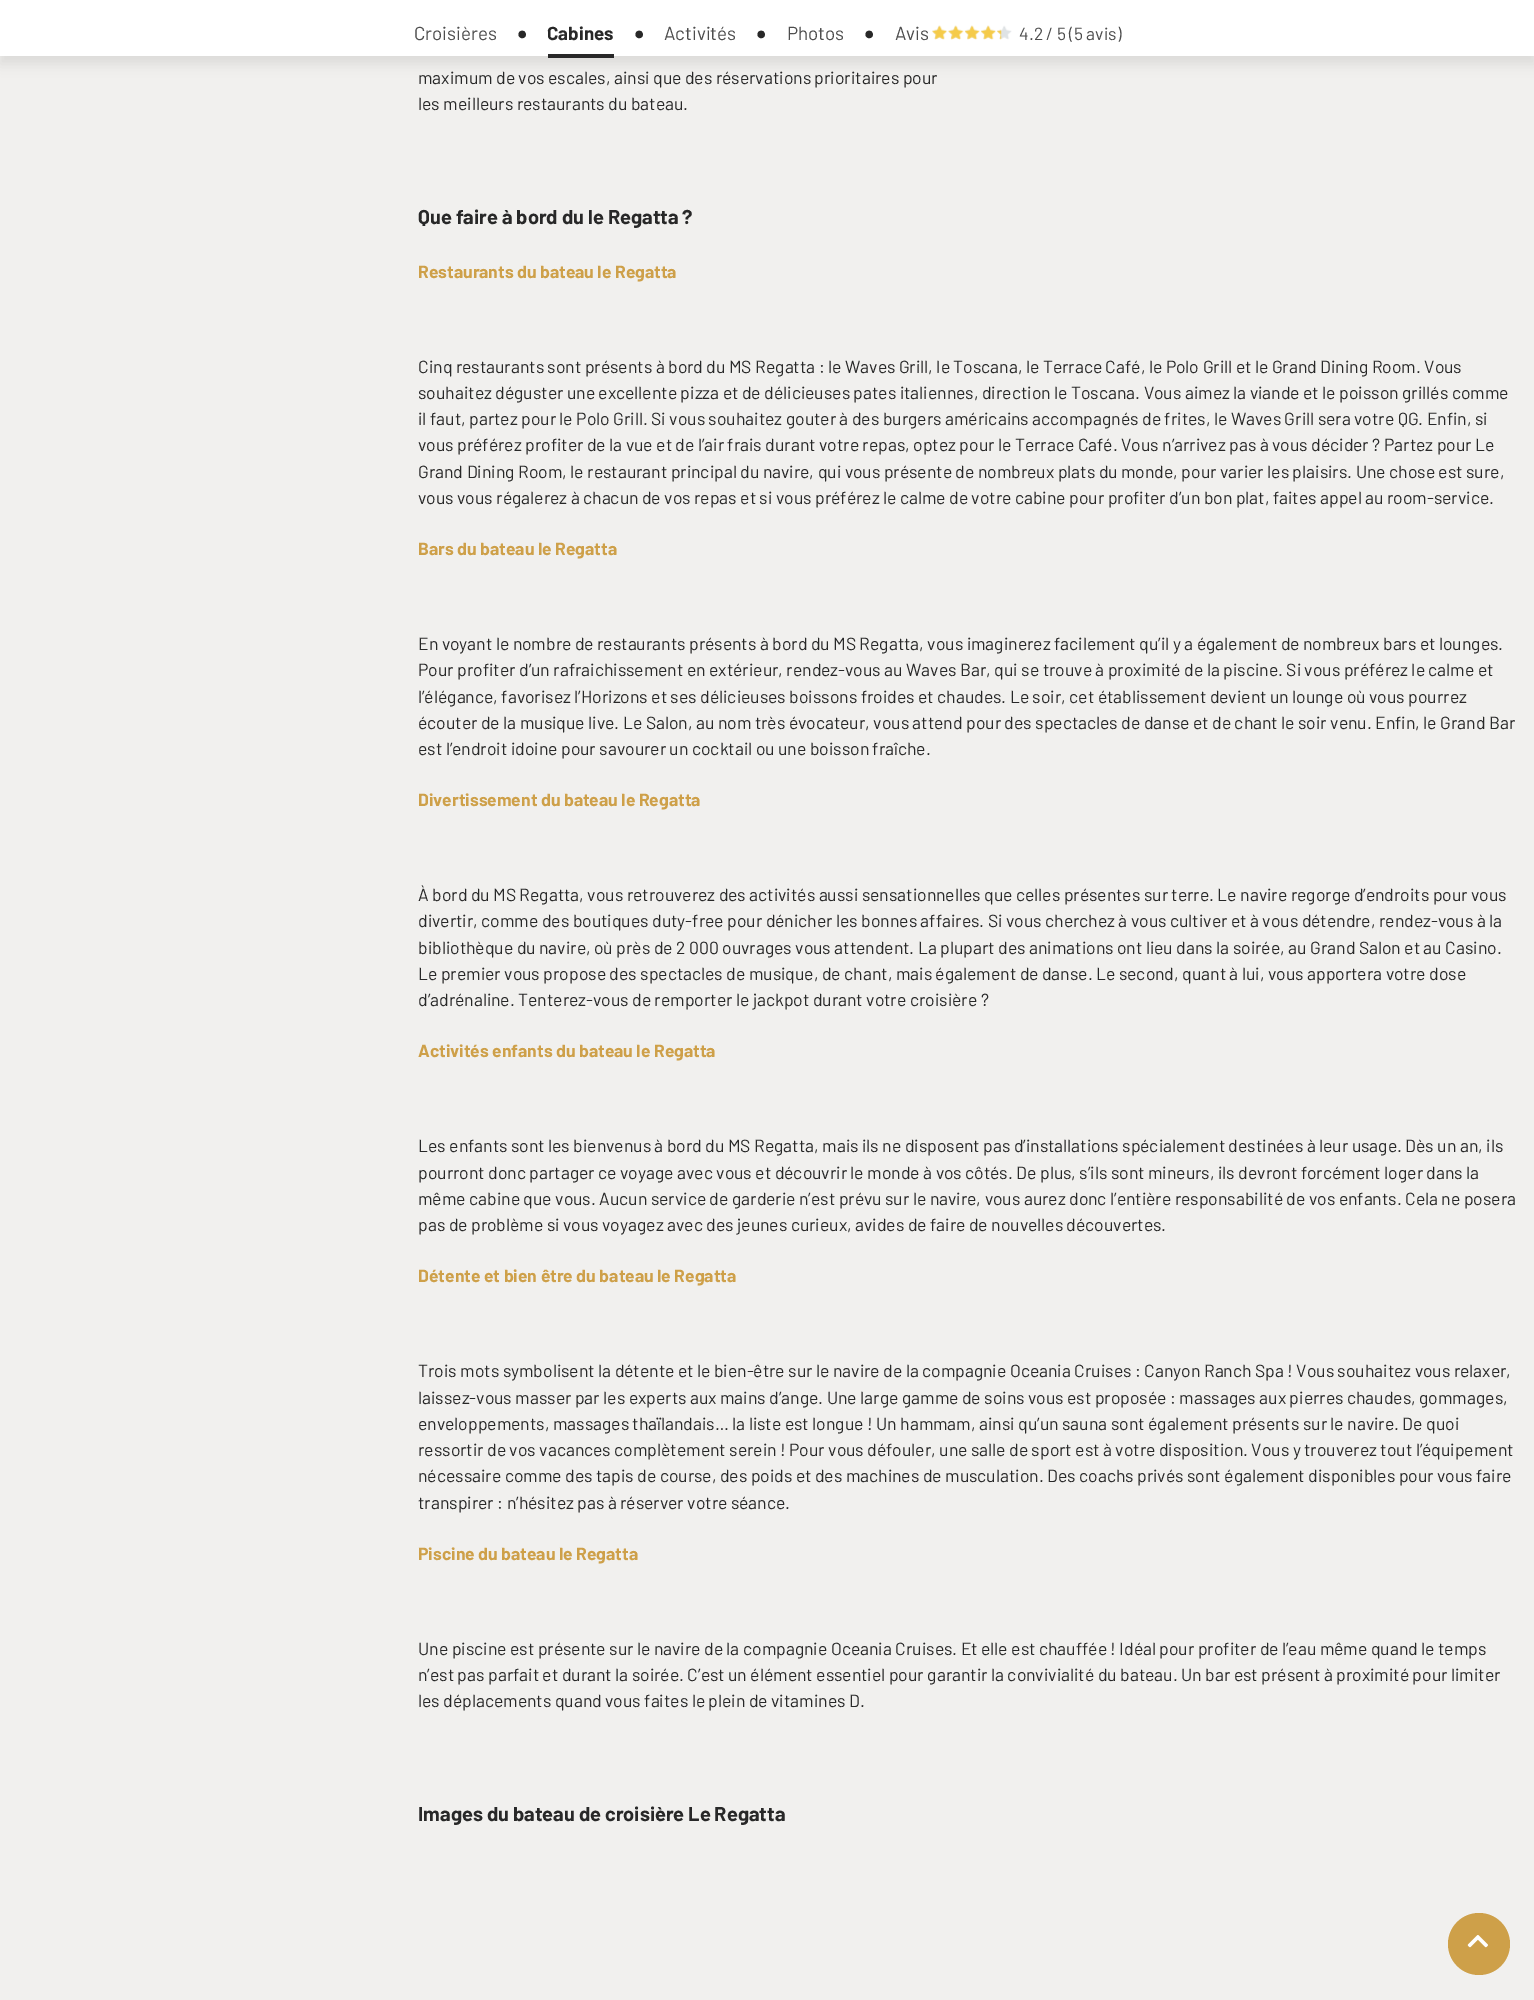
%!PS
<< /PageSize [1534 2000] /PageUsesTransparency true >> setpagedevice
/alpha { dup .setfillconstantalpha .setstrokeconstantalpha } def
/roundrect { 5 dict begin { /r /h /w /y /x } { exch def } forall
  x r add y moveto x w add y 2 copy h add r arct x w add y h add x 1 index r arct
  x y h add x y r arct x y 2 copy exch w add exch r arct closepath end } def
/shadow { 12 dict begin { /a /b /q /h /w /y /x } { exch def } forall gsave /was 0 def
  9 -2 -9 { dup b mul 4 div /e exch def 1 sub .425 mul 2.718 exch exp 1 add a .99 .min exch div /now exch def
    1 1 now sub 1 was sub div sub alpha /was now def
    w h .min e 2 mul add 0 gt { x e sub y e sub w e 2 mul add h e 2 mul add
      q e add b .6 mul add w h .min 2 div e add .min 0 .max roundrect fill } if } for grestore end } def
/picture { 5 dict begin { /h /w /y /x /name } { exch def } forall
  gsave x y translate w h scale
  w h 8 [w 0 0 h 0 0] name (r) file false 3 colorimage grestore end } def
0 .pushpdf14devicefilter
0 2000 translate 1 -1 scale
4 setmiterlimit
0.945 0.941 0.933 setrgbcolor
0 0 1534 2000 rectfill
0 setgray
0 8 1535 56 0 6 0.08 shadow
1 setgray
0 0 1534 56 rectfill
/Barlow-Regular [18.75 0 0 -18.75 0 0] selectfont
0.302 setgray
414 40 moveto (Croisières) show
/Barlow-Bold [48 0 0 -48 0 0] selectfont
0.157 setgray
516 38 moveto (.) show
548 54 66 4 rectfill
/Barlow-Bold [18.75 0 0 -18.75 0 0] selectfont
547 40 moveto (Cabines) show
/Barlow-Bold [48 0 0 -48 0 0] selectfont
633 38 moveto (.) show
/Barlow-Regular [18.75 0 0 -18.75 0 0] selectfont
0.302 setgray
664 40 moveto (Activités) show
/Barlow-Bold [48 0 0 -48 0 0] selectfont
0.157 setgray
755 38 moveto (.) show
/Barlow-Regular [18.75 0 0 -18.75 0 0] selectfont
0.302 setgray
787 40 moveto (Photos) show
/Barlow-Bold [48 0 0 -48 0 0] selectfont
0.157 setgray
863 38 moveto (.) show
/Barlow-Regular [18.75 0 0 -18.75 0 0] selectfont
0.302 setgray
895 40 moveto (Avis) show
(img1.rgb) 932 25 80 15 picture
(img2.rgb) 932 25 70 15 picture
/Barlow-Regular [17.5 0 0 -17.5 0 0] selectfont
1019 40 moveto (4.2 / 5 \(5 avis\)) show
0.157 setgray
418 84 moveto (maximum de vos escales, ainsi que des réservations prioritaires pour) show
418 110 moveto (les meilleurs restaurants du bateau.) show
/Barlow-Bold [20 0 0 -20 0 0] selectfont
418 224 moveto (Que faire à bord du le Regatta ?) show
/Barlow-Bold [17.5 0 0 -17.5 0 0] selectfont
0.808 0.627 0.286 setrgbcolor
418 278 moveto (Restaurants du bateau le Regatta) show
/Barlow-Regular [17.5 0 0 -17.5 0 0] selectfont
0.157 setgray
418 373 moveto (Cinq restaurants sont présents à bord du MS Regatta : le Waves Grill, le Toscana, le Terrace Café, le Polo Grill et le Grand Dining Room. Vous) show
418 399 moveto (souhaitez déguster une excellente pizza et de délicieuses pates italiennes, direction le Toscana. Vous aimez la viande et le poisson grillés comme) show
418 425 moveto (il faut, partez pour le Polo Grill. Si vous souhaitez gouter à des burgers américains accompagnés de frites, le Waves Grill sera votre QG. Enfin, si) show
418 451 moveto (vous préférez profiter de la vue et de l’air frais durant votre repas, optez pour le Terrace Café. Vous n’arrivez pas à vous décider ? Partez pour Le) show
418 478 moveto (Grand Dining Room, le restaurant principal du navire, qui vous présente de nombreux plats du monde, pour varier les plaisirs. Une chose est sure,) show
418 504 moveto (vous vous régalerez à chacun de vos repas et si vous préférez le calme de votre cabine pour profiter d’un bon plat, faites appel au room-service.) show
/Barlow-Bold [17.5 0 0 -17.5 0 0] selectfont
0.808 0.627 0.286 setrgbcolor
418 555 moveto (Bars du bateau le Regatta) show
/Barlow-Regular [17.5 0 0 -17.5 0 0] selectfont
0.157 setgray
418 650 moveto (En voyant le nombre de restaurants présents à bord du MS Regatta, vous imaginerez facilement qu’il y a également de nombreux bars et lounges.) show
418 676 moveto (Pour profiter d’un rafraichissement en extérieur, rendez-vous au Waves Bar, qui se trouve à proximité de la piscine. Si vous préférez le calme et) show
418 703 moveto (l’élégance, favorisez l’Horizons et ses délicieuses boissons froides et chaudes. Le soir, cet établissement devient un lounge où vous pourrez) show
418 729 moveto (écouter de la musique live. Le Salon, au nom très évocateur, vous attend pour des spectacles de danse et de chant le soir venu. Enfin, le Grand Bar) show
418 755 moveto (est l’endroit idoine pour savourer un cocktail ou une boisson fraîche.) show
/Barlow-Bold [17.5 0 0 -17.5 0 0] selectfont
0.808 0.627 0.286 setrgbcolor
418 806 moveto (Divertissement du bateau le Regatta) show
/Barlow-Regular [17.5 0 0 -17.5 0 0] selectfont
0.157 setgray
418 901 moveto (À bord du MS Regatta, vous retrouverez des activités aussi sensationnelles que celles présentes sur terre. Le navire regorge d’endroits pour vous) show
418 927 moveto (divertir, comme des boutiques duty-free pour dénicher les bonnes affaires. Si vous cherchez à vous cultiver et à vous détendre, rendez-vous à la) show
418 954 moveto (bibliothèque du navire, où près de 2 000 ouvrages vous attendent. La plupart des animations ont lieu dans la soirée, au Grand Salon et au Casino.) show
418 980 moveto (Le premier vous propose des spectacles de musique, de chant, mais également de danse. Le second, quant à lui, vous apportera votre dose) show
418 1006 moveto (d’adrénaline. Tenterez-vous de remporter le jackpot durant votre croisière ?) show
/Barlow-Bold [17.5 0 0 -17.5 0 0] selectfont
0.808 0.627 0.286 setrgbcolor
418 1057 moveto (Activités enfants du bateau le Regatta) show
/Barlow-Regular [17.5 0 0 -17.5 0 0] selectfont
0.157 setgray
418 1152 moveto (Les enfants sont les bienvenus à bord du MS Regatta, mais ils ne disposent pas d’installations spécialement destinées à leur usage. Dès un an, ils) show
418 1179 moveto (pourront donc partager ce voyage avec vous et découvrir le monde à vos côtés. De plus, s’ils sont mineurs, ils devront forcément loger dans la) show
418 1205 moveto (même cabine que vous. Aucun service de garderie n’est prévu sur le navire, vous aurez donc l’entière responsabilité de vos enfants. Cela ne posera) show
418 1231 moveto (pas de problème si vous voyagez avec des jeunes curieux, avides de faire de nouvelles découvertes.) show
/Barlow-Bold [17.5 0 0 -17.5 0 0] selectfont
0.808 0.627 0.286 setrgbcolor
418 1282 moveto (Détente et bien être du bateau le Regatta) show
/Barlow-Regular [17.5 0 0 -17.5 0 0] selectfont
0.157 setgray
418 1377 moveto (Trois mots symbolisent la détente et le bien-être sur le navire de la compagnie Oceania Cruises : Canyon Ranch Spa ! Vous souhaitez vous relaxer,) show
418 1404 moveto (laissez-vous masser par les experts aux mains d’ange. Une large gamme de soins vous est proposée : massages aux pierres chaudes, gommages,) show
418 1430 moveto (enveloppements, massages thaïlandais… la liste est longue ! Un hammam, ainsi qu’un sauna sont également présents sur le navire. De quoi) show
418 1456 moveto (ressortir de vos vacances complètement serein ! Pour vous défouler, une salle de sport est à votre disposition. Vous y trouverez tout l’équipement) show
418 1482 moveto (nécessaire comme des tapis de course, des poids et des machines de musculation. Des coachs privés sont également disponibles pour vous faire) show
418 1509 moveto (transpirer : n’hésitez pas à réserver votre séance.) show
/Barlow-Bold [17.5 0 0 -17.5 0 0] selectfont
0.808 0.627 0.286 setrgbcolor
418 1560 moveto (Piscine du bateau le Regatta) show
/Barlow-Regular [17.5 0 0 -17.5 0 0] selectfont
0.157 setgray
418 1655 moveto (Une piscine est présente sur le navire de la compagnie Oceania Cruises. Et elle est chauffée ! Idéal pour profiter de l’eau même quand le temps) show
418 1681 moveto (n’est pas parfait et durant la soirée. C’est un élément essentiel pour garantir la convivialité du bateau. Un bar est présent à proximité pour limiter) show
418 1707 moveto (les déplacements quand vous faites le plein de vitamines D.) show
/Barlow-Bold [20 0 0 -20 0 0] selectfont
418 1821 moveto (Images du bateau de croisière Le Regatta) show
0.808 0.627 0.286 setrgbcolor
newpath 1479 1944 31 0 360 arc closepath fill
(img3.rgb) 1467 1935 21 13 picture
.poppdf14devicefilter showpage
